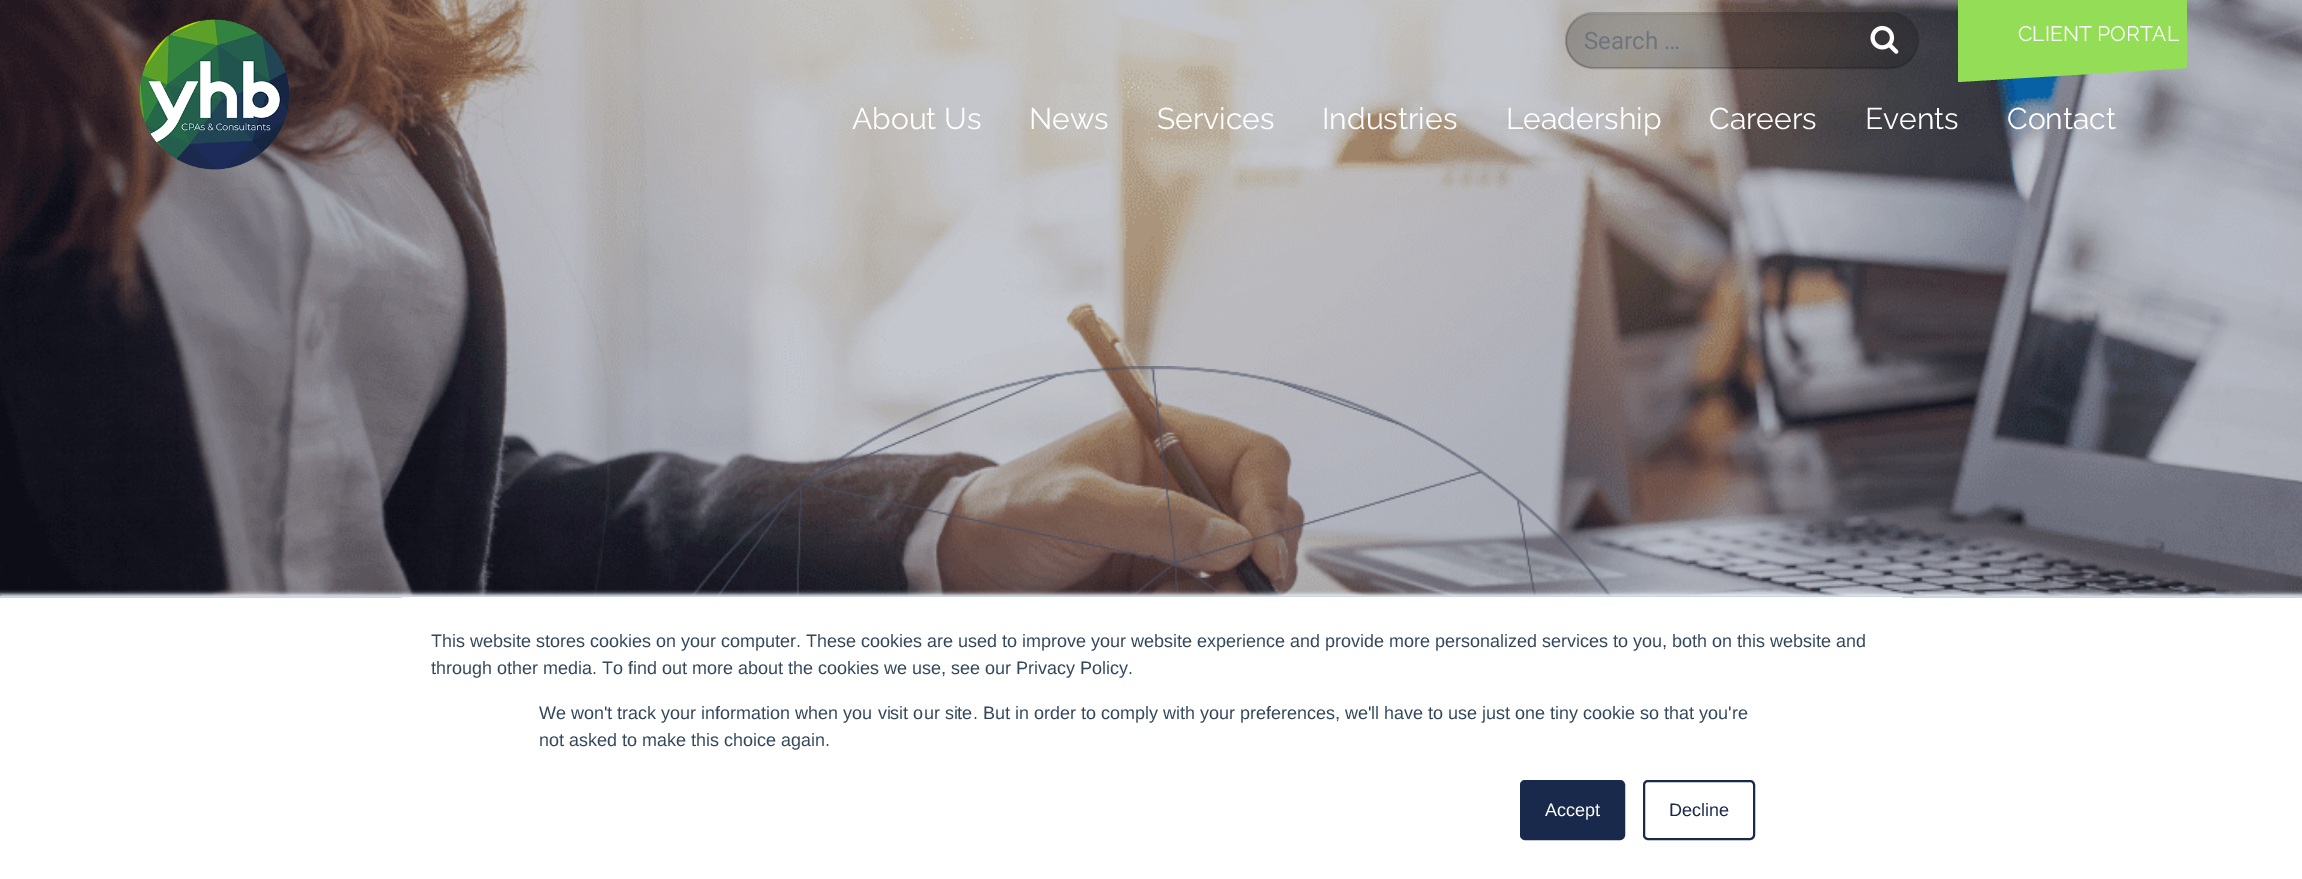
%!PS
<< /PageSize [2302 879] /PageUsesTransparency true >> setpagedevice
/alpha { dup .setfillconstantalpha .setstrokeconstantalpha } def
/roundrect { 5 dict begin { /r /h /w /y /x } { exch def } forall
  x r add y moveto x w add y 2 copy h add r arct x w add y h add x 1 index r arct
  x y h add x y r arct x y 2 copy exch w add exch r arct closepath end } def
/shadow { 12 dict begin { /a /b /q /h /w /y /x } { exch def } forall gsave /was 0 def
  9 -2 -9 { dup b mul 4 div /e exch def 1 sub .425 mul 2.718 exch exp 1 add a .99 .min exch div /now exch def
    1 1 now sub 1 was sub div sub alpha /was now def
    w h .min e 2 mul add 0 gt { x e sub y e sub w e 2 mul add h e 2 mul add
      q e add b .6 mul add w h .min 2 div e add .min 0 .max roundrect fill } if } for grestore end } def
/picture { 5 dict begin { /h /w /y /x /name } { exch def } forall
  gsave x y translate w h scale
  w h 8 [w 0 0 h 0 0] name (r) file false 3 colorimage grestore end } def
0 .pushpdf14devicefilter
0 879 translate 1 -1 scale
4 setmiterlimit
1 setgray
0 0 2302 879 rectfill
(img1.rgb) 0 0 2302 596 picture
(img2.rgb) 139 19 151 151 picture
0.58 0.871 0.341 setrgbcolor
1958 0 229 68 rectfill
/Raleway-Regular [21 0 0 -21 0 0] selectfont
1 setgray
2018 41 moveto (CLIENT PORTAL) show
0.58 0.871 0.341 setrgbcolor
newpath 1958 82 moveto 1958 68 lineto 2187 68 lineto closepath fill
/Raleway-Regular [30 0 0 -30 0 0] selectfont
1 setgray
852 129 moveto (About Us) show
1029 129 moveto (News) show
1157 129 moveto (Services) show
1322 129 moveto (Industries) show
1506 129 moveto (Leadership) show
1709 129 moveto (Careers) show
1865 129 moveto (Events) show
2007 129 moveto (Contact) show
0.2 alpha
0 setgray
1566 14 351 54 27 roundrect fill
2 setlinewidth
1566 13 352 55 27.5 roundrect stroke
/Roboto-Regular [24 0 0 -24 0 0] selectfont
1 alpha
0.424 0.459 0.49 setrgbcolor
1584 49 moveto (Search …) show
(img3.rgb) 1870 25 29 29 picture
(img4.rgb) 690 366 922 230 picture
0.918 0.941 0.965 setrgbcolor
0 594 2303 284 0 2 1 shadow
1 setgray
0 598 2302 281 rectfill
0.796 0.839 0.886 setrgbcolor
0 596 2302 2 rectfill
1 setgray
402 597 1500 1 rectfill
/LiberationSans-Regular [18 0 0 -18 0 0] selectfont
0.2 0.278 0.357 setrgbcolor
431 647 moveto (This website stores cookies on your computer. These cookies are used to improve your website experience and provide more personalized services to you, both on this website and) show
431 674 moveto (through other media. To find out more about the cookies we use, see our Privacy Policy.) show
539 719 moveto (We won't track your information when you visit our site. But in order to comply with your preferences, we'll have to use just one tiny cookie so that you're) show
539 746 moveto (not asked to make this choice again.) show
0.094 0.161 0.298 setrgbcolor
1521 781 103 58 4 roundrect gsave fill grestore
stroke
1 setgray
1545 816 moveto (Accept) show
0.094 0.161 0.298 setrgbcolor
1644 781 110 58 4 roundrect stroke
1669 816 moveto (Decline) show
.poppdf14devicefilter showpage
